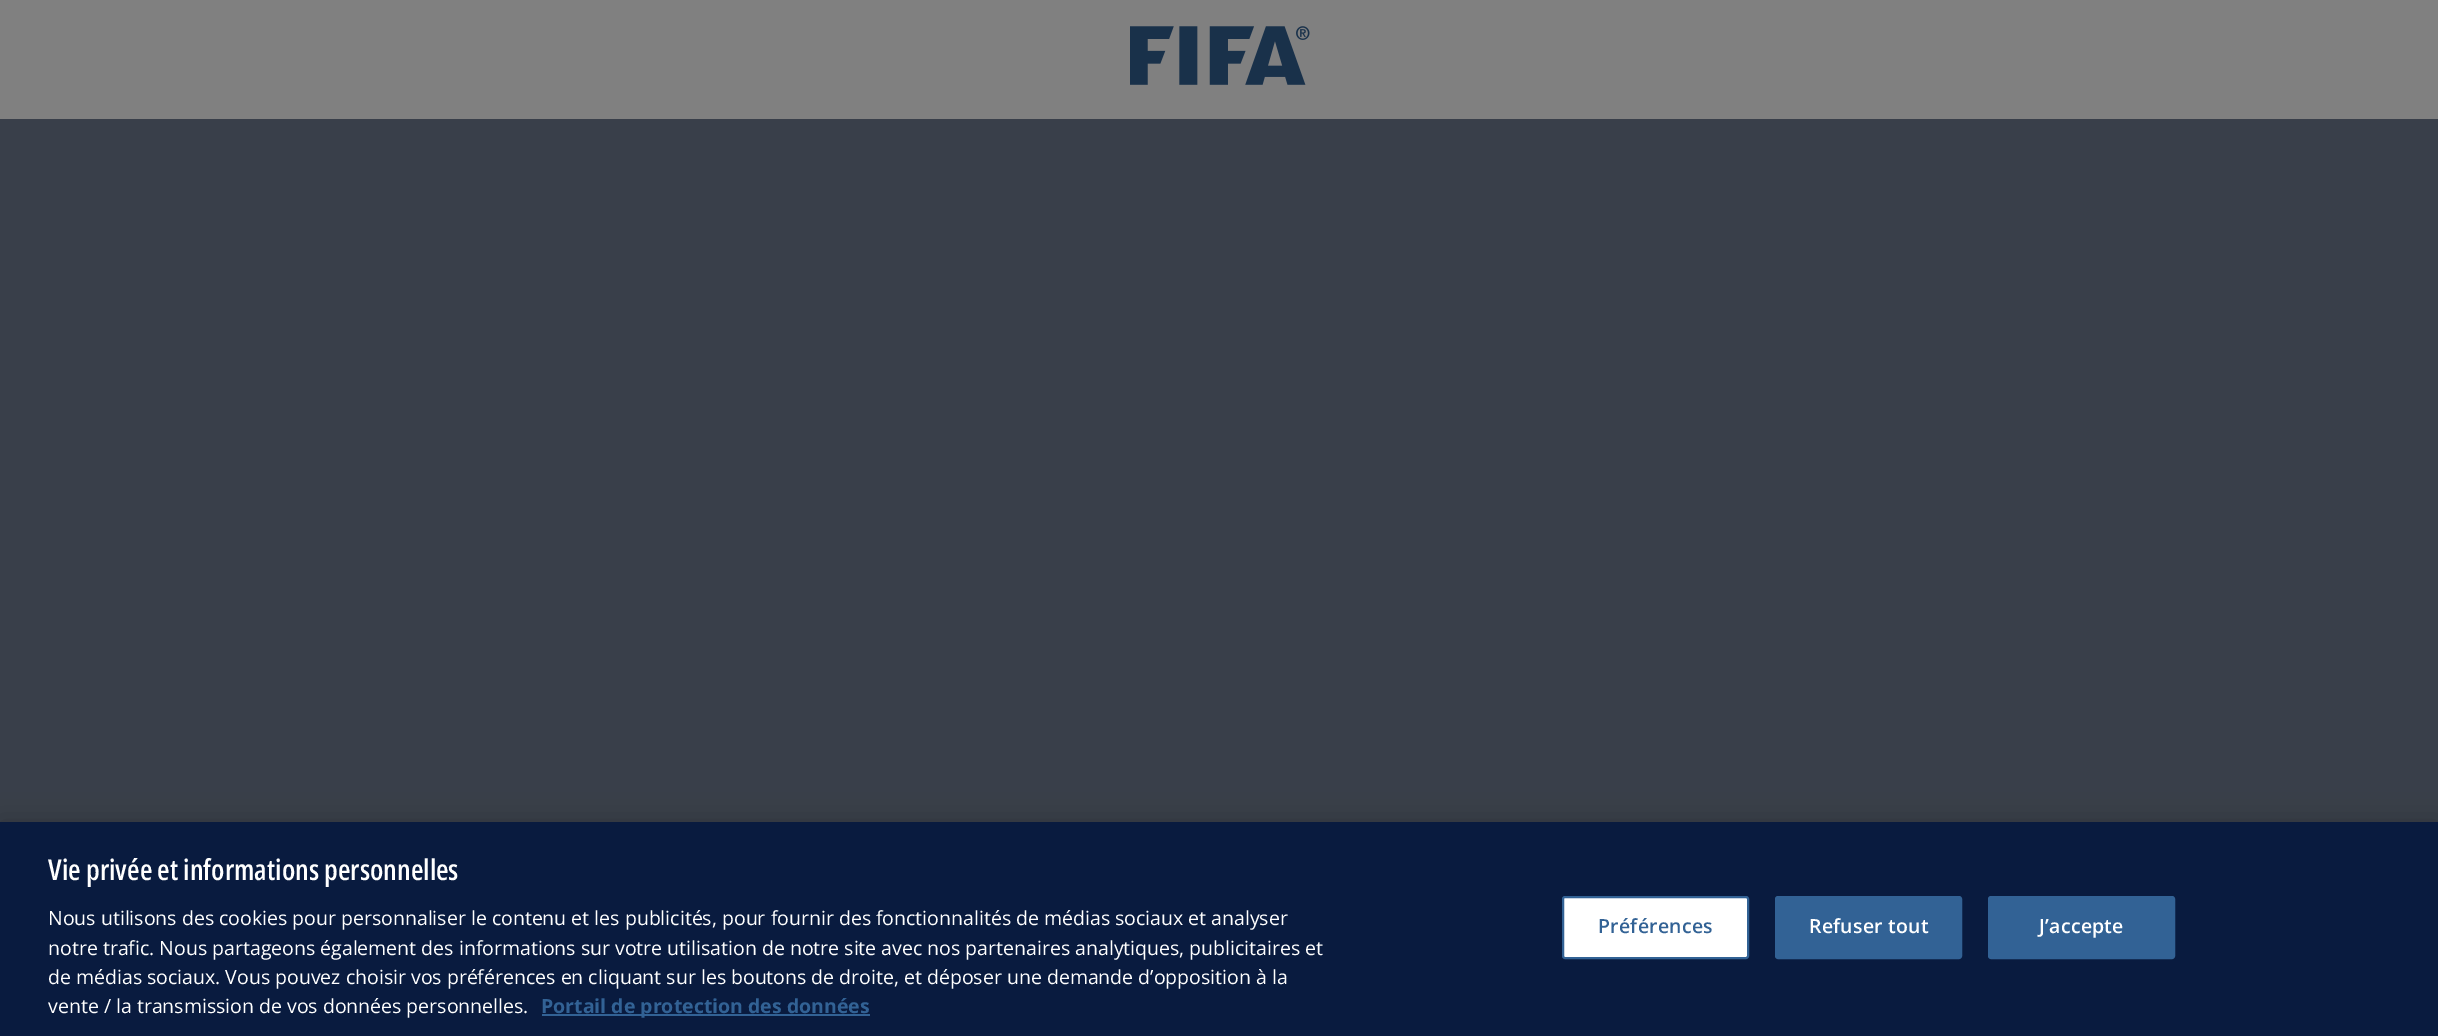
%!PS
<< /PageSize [2438 1036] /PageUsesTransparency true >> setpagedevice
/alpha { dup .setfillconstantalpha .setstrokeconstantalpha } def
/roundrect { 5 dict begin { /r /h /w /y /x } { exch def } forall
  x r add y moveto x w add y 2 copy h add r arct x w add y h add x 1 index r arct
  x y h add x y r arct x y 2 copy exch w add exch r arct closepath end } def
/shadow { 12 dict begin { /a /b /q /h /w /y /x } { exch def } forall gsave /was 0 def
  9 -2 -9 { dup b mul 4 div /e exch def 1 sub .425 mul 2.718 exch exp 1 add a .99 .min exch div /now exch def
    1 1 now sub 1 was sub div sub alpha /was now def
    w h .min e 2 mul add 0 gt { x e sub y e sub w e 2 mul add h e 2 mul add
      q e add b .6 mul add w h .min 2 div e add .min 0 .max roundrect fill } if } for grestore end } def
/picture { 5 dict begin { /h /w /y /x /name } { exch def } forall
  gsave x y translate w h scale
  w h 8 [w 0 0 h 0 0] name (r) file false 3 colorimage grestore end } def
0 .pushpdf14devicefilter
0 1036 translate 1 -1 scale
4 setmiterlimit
0.502 setgray
0 0 2438 1036 rectfill
(img1.rgb) 1130 26 180 59 picture
0.224 0.247 0.29 setrgbcolor
0 119 2438 703 rectfill
0 setgray
0 822 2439 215 0 13.5 0.2 shadow
0.035 0.106 0.247 setrgbcolor
0 822 2438 214 rectfill
/OpenSans-SemiBold [28.75 0 0 -28.75 0 0] selectfont
1 setgray
48 880 moveto (Vie privée et informations personnelles) show
/OpenSans-Regular [19.5 0 0 -19.5 0 0] selectfont
48 925 moveto (Nous utilisons des cookies pour personnaliser le contenu et les publicités, pour fournir des fonctionnalités de médias sociaux et analyser) show
48 955 moveto (notre trafic. Nous partageons également des informations sur votre utilisation de notre site avec nos partenaires analytiques, publicitaires et) show
48 984 moveto (de médias sociaux. Vous pouvez choisir vos préférences en cliquant sur les boutons de droite, et déposer une demande d’opposition à la) show
48 1013 moveto (vente / la transmission de vos données personnelles.) show
0.196 0.384 0.584 setrgbcolor
542 1014 328 2 rectfill
/OpenSans-Bold [19.5 0 0 -19.5 0 0] selectfont
541 1013 moveto (Portail de protection des données) show
1 setgray
1563 897 185 61 2 roundrect gsave fill grestore
0.196 0.384 0.584 setrgbcolor
2 setlinewidth
stroke
/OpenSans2-SemiBold [19.5 0 0 -19.5 0 0] selectfont
1598 933 moveto 0.25 0 (Préférences) ashow
1776 897 185 61 2 roundrect gsave fill grestore
stroke
1 setgray
1809 933 moveto 0.25 0 (Refuser tout) ashow
0.196 0.384 0.584 setrgbcolor
1989 897 185 61 2 roundrect gsave fill grestore
stroke
1 setgray
2039 933 moveto 0.25 0 (J’accepte) ashow
.poppdf14devicefilter showpage
